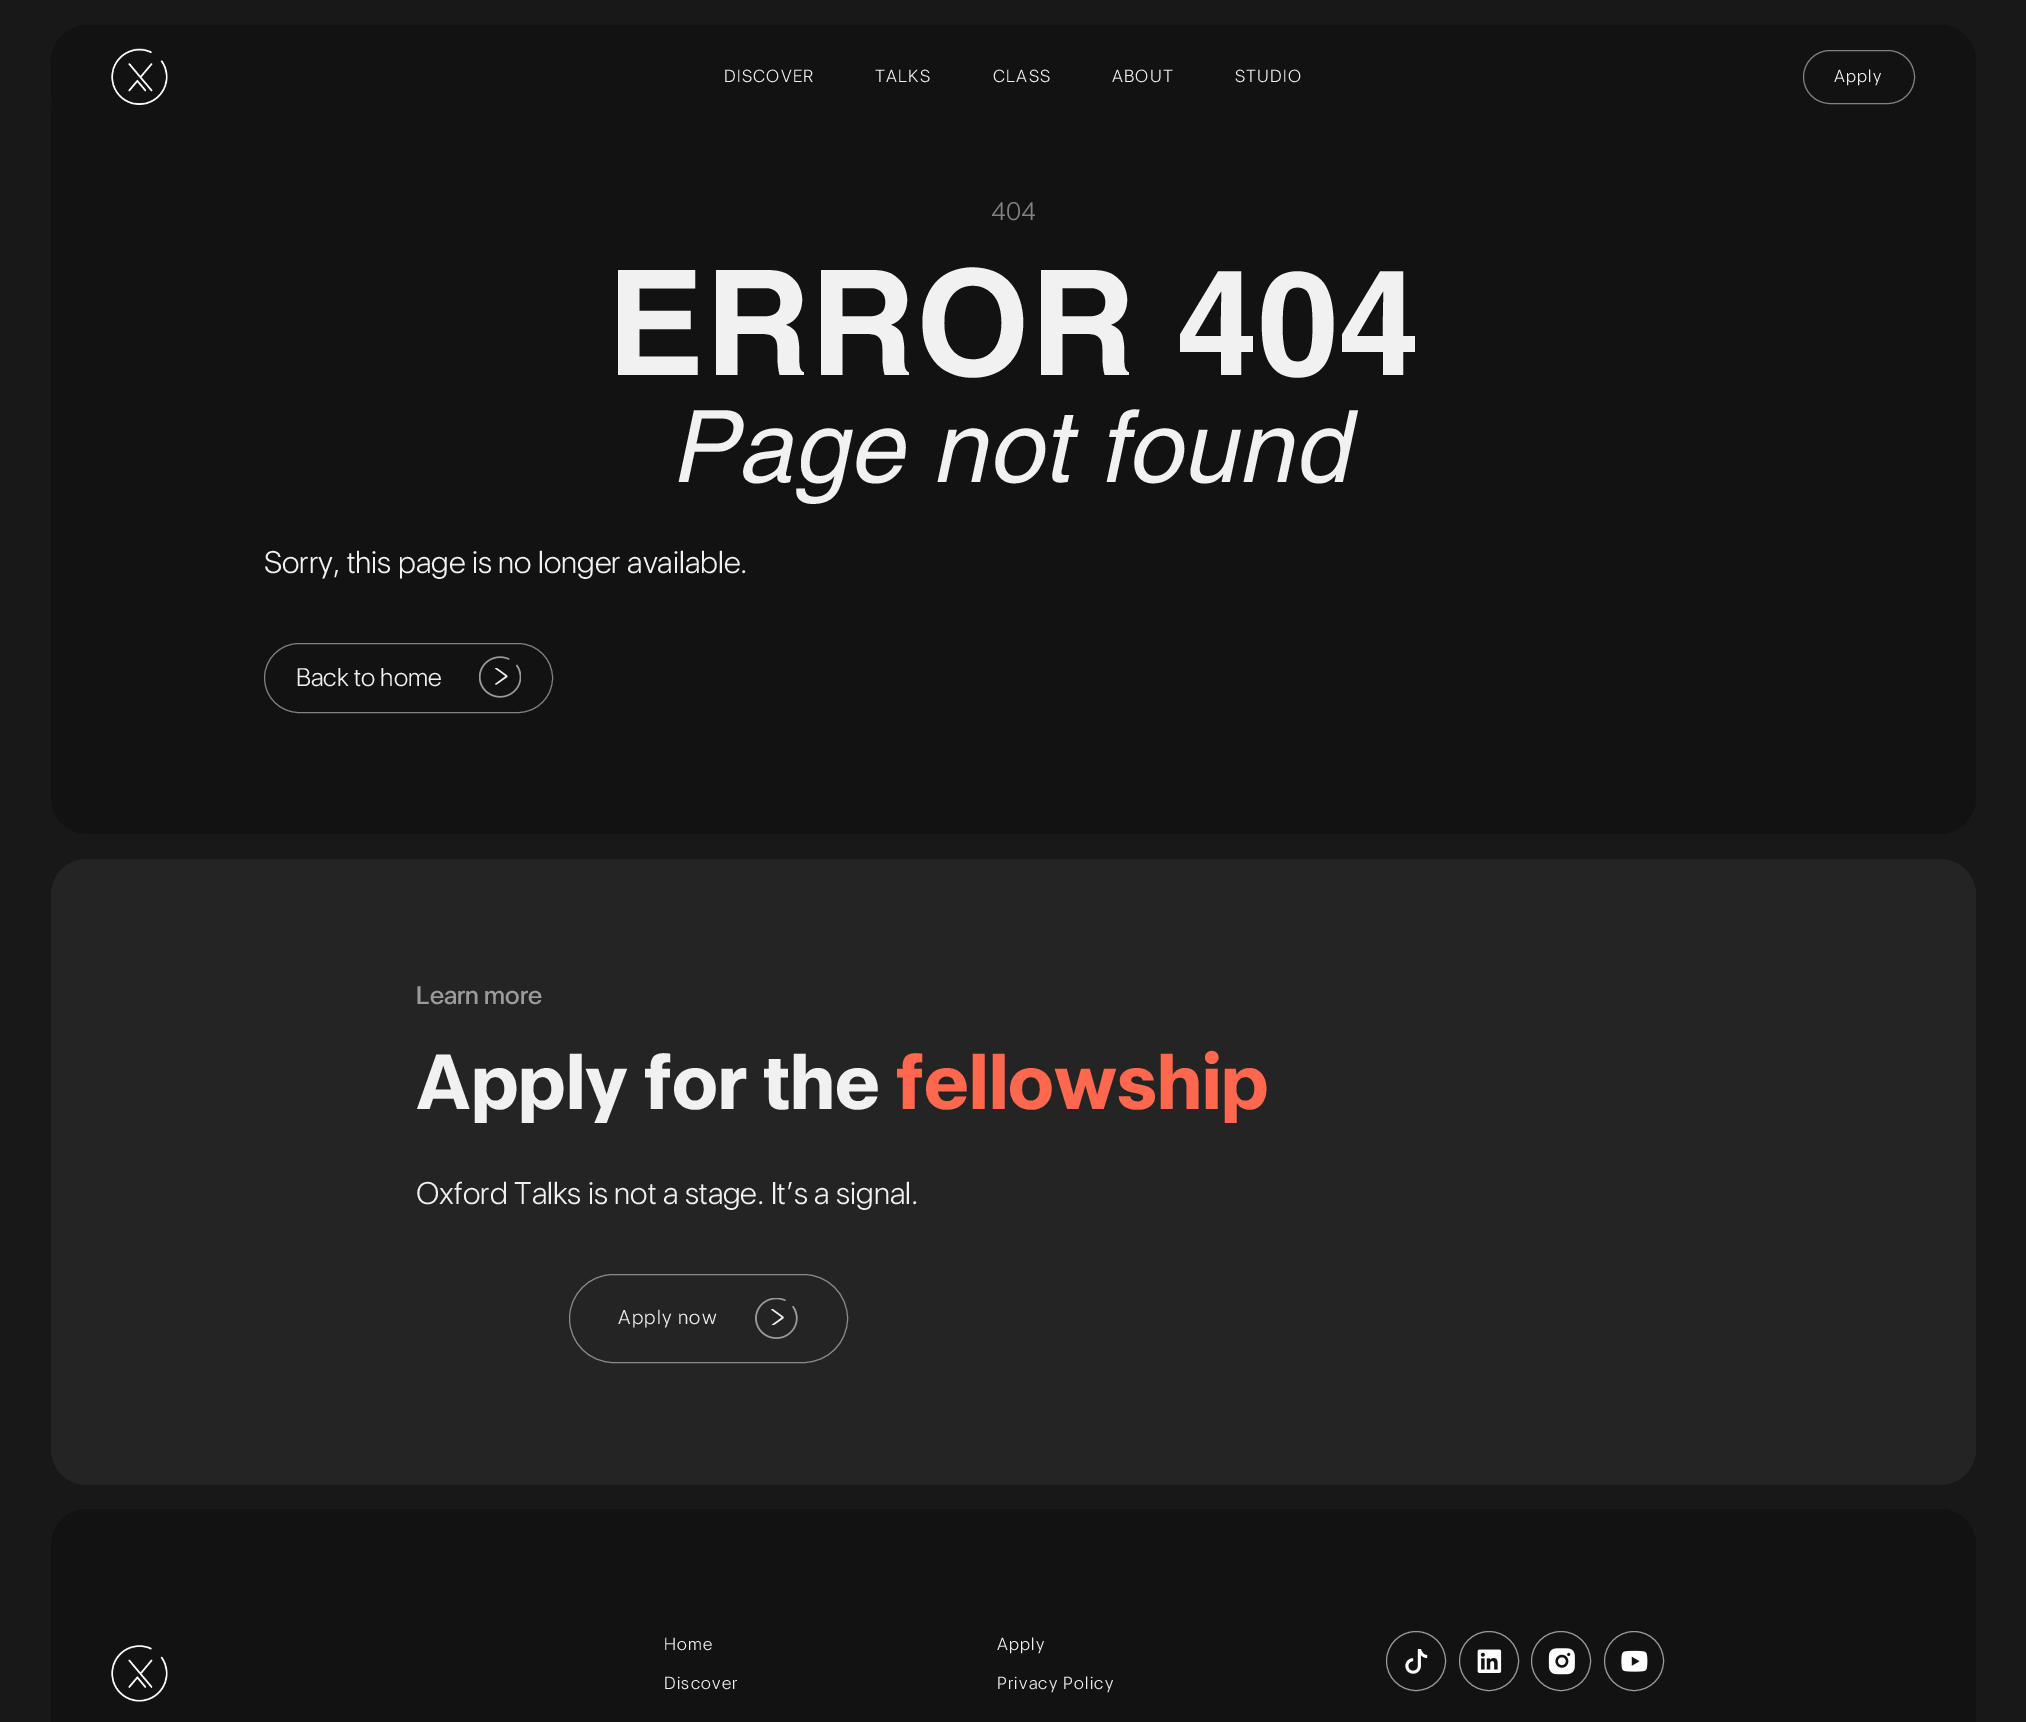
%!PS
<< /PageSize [2026 1722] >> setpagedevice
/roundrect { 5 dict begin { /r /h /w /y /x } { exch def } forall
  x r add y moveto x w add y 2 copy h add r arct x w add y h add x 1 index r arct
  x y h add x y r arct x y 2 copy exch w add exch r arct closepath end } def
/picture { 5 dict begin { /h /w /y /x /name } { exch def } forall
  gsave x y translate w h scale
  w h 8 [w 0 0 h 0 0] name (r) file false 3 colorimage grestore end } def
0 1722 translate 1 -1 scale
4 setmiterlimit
0.094 setgray
0 0 2026 1722 rectfill
0.071 setgray
51 75 1925 759 36 roundrect fill
51 25 1925 105 36 roundrect fill
(img1.rgb) 111 48 57 57 picture
/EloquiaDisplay-Light [17.5 0 0 -17.5 0 0] selectfont
0.945 setgray
724 82 moveto 1.25 0 (DISCOVER) ashow
875 82 moveto 1.25 0 (TALKS) ashow
993 82 moveto 1.25 0 (CLASS) ashow
1112 82 moveto 1.25 0 (ABOUT) ashow
1235 82 moveto 1.25 0 (STUDIO) ashow
0.51 setgray
1803.5 50.5 111 53 26.5 roundrect stroke
0.945 setgray
1834 82 moveto 1.25 0 (Apply) ashow
/EloquiaDisplay-Light [25.5 0 0 -25.5 0 0] selectfont
0.51 setgray
991 220 moveto (404) show
/Helvetica-Bold [146.25 0 0 -146.25 0 0] selectfont
0.945 setgray
607 375 moveto (ERROR 404) show
/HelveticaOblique-Italic [100 0 0 -100 0 0] selectfont
670 482 moveto (Page not found) show
/EloquiaDisplay-Light [31.25 0 0 -31.25 0 0] selectfont
264 573 moveto (Sorry, this page is no longer available.) show
0.51 setgray
264.5 643.5 288 69 34.5 roundrect stroke
/EloquiaDisplay-Light [25.5 0 0 -25.5 0 0] selectfont
0.945 setgray
296 686 moveto (Back to home) show
(img2.rgb) 479 656 42 42 picture
(img3.rgb) 495 668 13 17 picture
0.141 setgray
51 859 1925 626 36 roundrect fill
/EloquiaDisplay-Medium [25.5 0 0 -25.5 0 0] selectfont
0.608 setgray
416 1004 moveto (Learn more) show
/EloquiaDisplay-Bold [78 0 0 -78 0 0] selectfont
0.945 setgray
416 1109 moveto (Apply for the) show
1 0.404 0.306 setrgbcolor
896 1109 moveto (fellowship) show
/EloquiaDisplay-Light [31.25 0 0 -31.25 0 0] selectfont
0.945 setgray
416 1204 moveto (Oxford Talks is not a stage. It’s a signal.) show
0.545 setgray
569.5 1274.5 278 88 44 roundrect stroke
/EloquiaDisplay-Light [20 0 0 -20 0 0] selectfont
0.945 setgray
618 1324 moveto 1.25 0 (Apply now) ashow
(img4.rgb) 755 1298 43 41 picture
(img5.rgb) 771 1309 13 16 picture
0.071 setgray
51 1509 1925 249 36 roundrect fill
(img6.rgb) 111 1645 57 57 picture
/EloquiaDisplay-Light [17.5 0 0 -17.5 0 0] selectfont
0.945 setgray
664 1650 moveto 1.25 0 (Home) ashow
664 1689 moveto 1.25 0 (Discover) ashow
997 1650 moveto 1.25 0 (Apply) ashow
997 1689 moveto 1.25 0 (Privacy Policy) ashow
0.608 setgray
newpath 1416 1661 29.5 0 360 arc closepath stroke
(img7.rgb) 1405 1649 23 25 picture
newpath 1489 1661 29.5 0 360 arc closepath stroke
(img8.rgb) 1477 1649 25 24 picture
newpath 1561 1661 29.5 0 360 arc closepath stroke
(img9.rgb) 1548 1648 27 27 picture
newpath 1634 1661 29.5 0 360 arc closepath stroke
(img10.rgb) 1621 1650 27 22 picture
showpage
